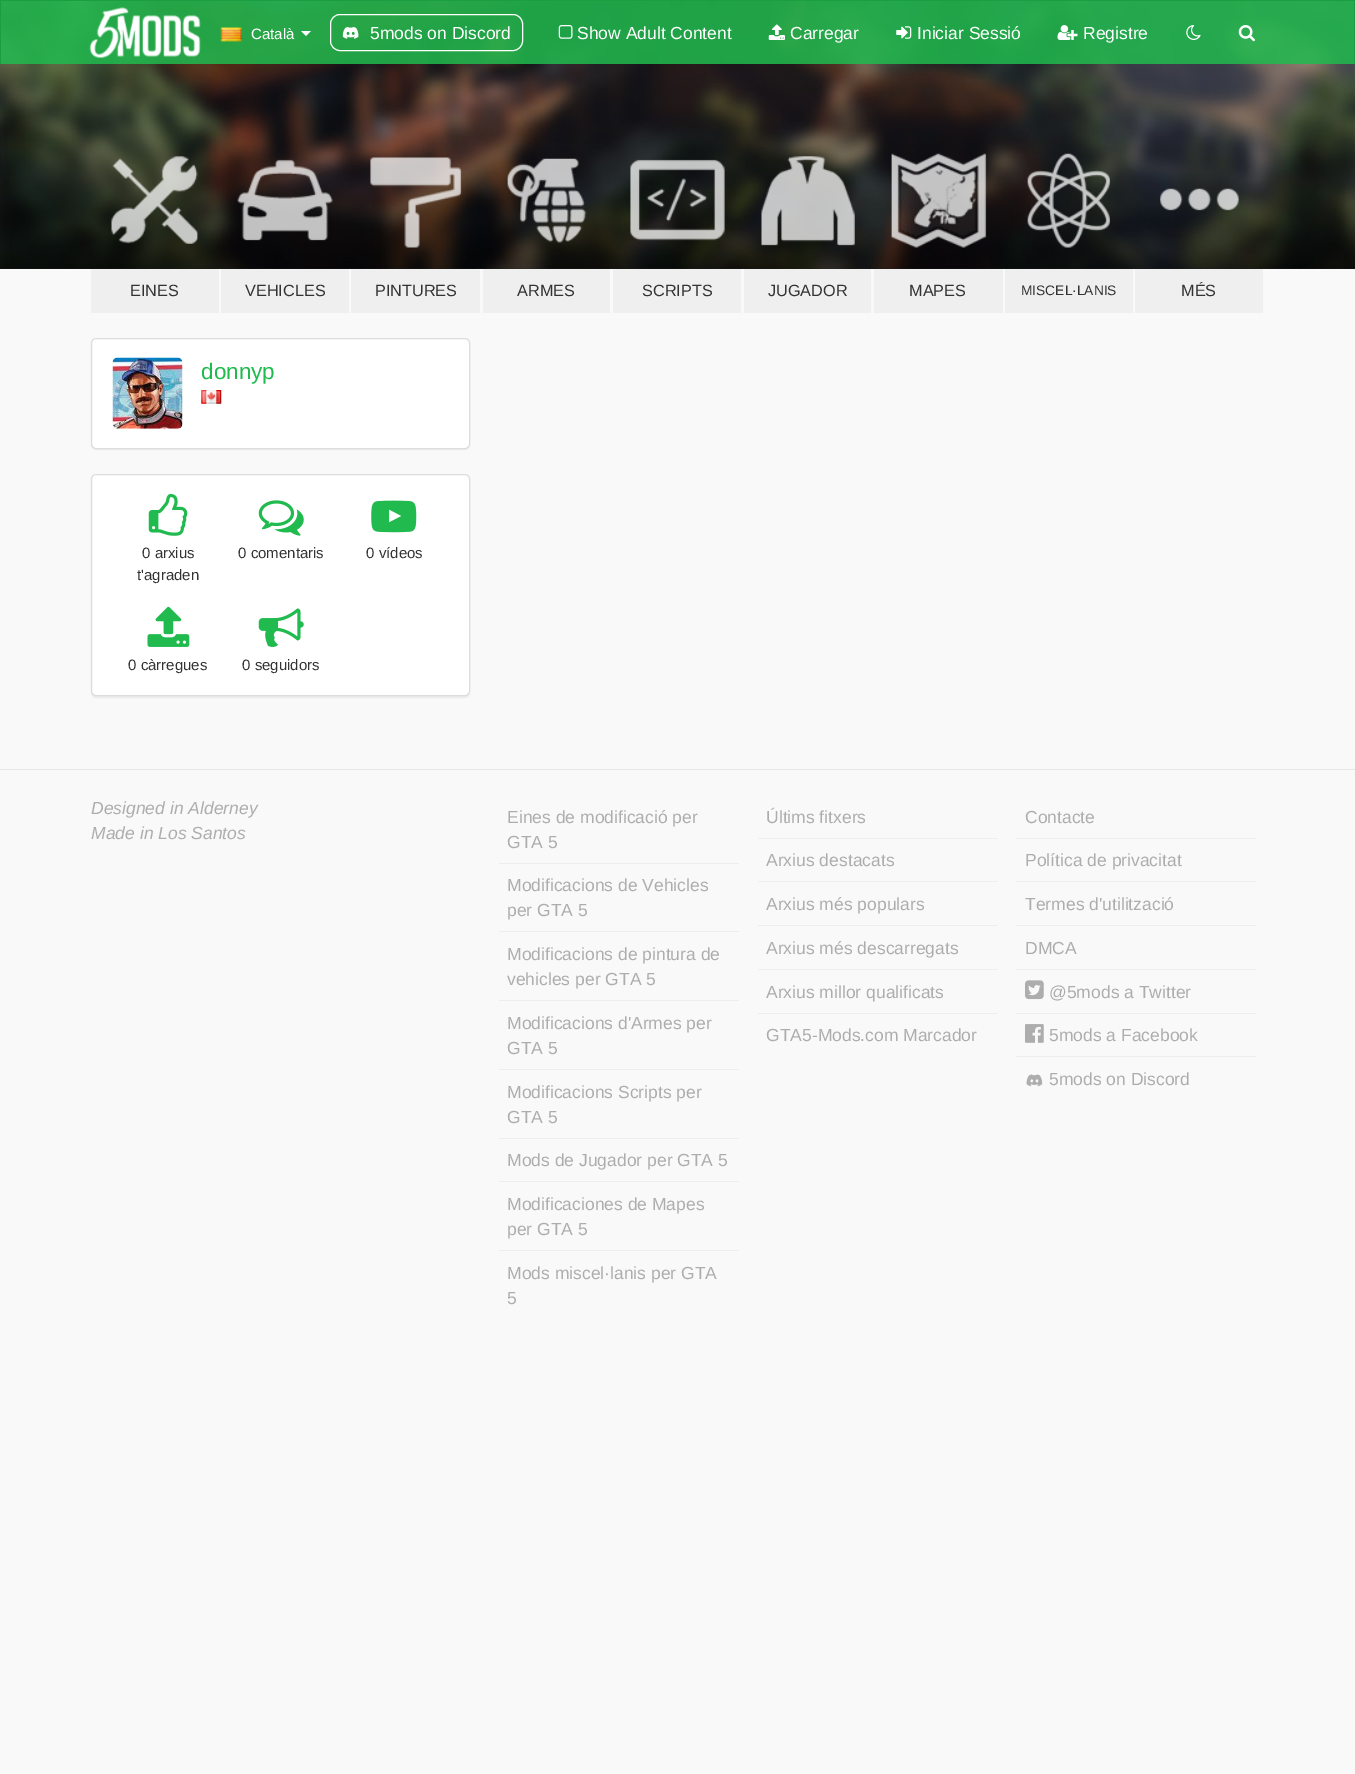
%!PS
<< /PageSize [1355 1774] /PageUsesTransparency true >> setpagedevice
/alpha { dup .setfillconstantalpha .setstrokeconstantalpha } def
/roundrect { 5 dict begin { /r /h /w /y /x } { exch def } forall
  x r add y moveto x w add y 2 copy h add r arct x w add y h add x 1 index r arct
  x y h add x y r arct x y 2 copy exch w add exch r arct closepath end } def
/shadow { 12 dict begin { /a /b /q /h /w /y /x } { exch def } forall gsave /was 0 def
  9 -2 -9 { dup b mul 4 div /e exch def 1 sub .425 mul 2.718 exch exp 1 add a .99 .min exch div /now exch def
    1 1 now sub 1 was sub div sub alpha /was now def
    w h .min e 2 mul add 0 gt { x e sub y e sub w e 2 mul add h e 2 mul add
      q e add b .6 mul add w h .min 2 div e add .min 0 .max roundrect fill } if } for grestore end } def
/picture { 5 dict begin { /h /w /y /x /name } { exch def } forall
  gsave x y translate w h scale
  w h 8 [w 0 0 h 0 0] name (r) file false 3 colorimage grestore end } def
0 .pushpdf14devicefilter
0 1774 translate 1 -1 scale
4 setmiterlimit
0.976 setgray
0 0 1355 1774 rectfill
(img10.rgb) 0 1 1355 268 picture
0.85 alpha
0.125 0.729 0.306 setrgbcolor
1 1 1353 63 rectfill
1 alpha
0.106 0.62 0.259 setrgbcolor
0 0 1355 1 rectfill
1354 0 1 64 rectfill
0 0 1 64 rectfill
(img1.rgb) 89 7 112 51 picture
(img2.rgb) 220 27 22 15 picture
/LiberationSans-Regular [15 0 0 -15 0 0] selectfont
1 setgray
251 39 moveto (Català) show
newpath 301 31 moveto 311 31 lineto 306 36 lineto closepath fill
330.5 14.5 192 36 9.5 roundrect stroke
(img3.rgb) 342 26 17 13 picture
/LiberationSans-Regular [17.5 0 0 -17.5 0 0] selectfont
370 39 moveto (5mods on Discord) show
(img4.rgb) 558 25 15 14 picture
577 39 moveto (Show Adult Content) show
(img5.rgb) 768 24 17 16 picture
790 39 moveto (Carregar) show
(img6.rgb) 896 26 16 13 picture
917 39 moveto (Iniciar Sessió) show
(img7.rgb) 1057 25 21 15 picture
1083 39 moveto (Registre) show
(img8.rgb) 1186 25 15 15 picture
(img9.rgb) 1238 25 17 17 picture
(img11.rgb) 111 156 87 88 picture
0.937 setgray
91 269 128 44 rectfill
/LiberationSans-Regular [16.25 0 0 -16.25 0 0] selectfont
0.2 setgray
130 296 moveto (EINES) show
(img12.rgb) 237 159 96 82 picture
0.937 setgray
221 269 128 44 rectfill
0.2 setgray
245 296 moveto (VEHICLES) show
(img13.rgb) 370 157 92 91 picture
0.937 setgray
351 269 129 44 rectfill
0.2 setgray
375 296 moveto (PINTURES) show
(img14.rgb) 507 158 80 85 picture
0.937 setgray
483 269 127 44 rectfill
0.2 setgray
517 296 moveto (ARMES) show
(img15.rgb) 630 159 95 82 picture
0.937 setgray
613 269 128 44 rectfill
0.2 setgray
642 296 moveto (SCRIPTS) show
(img16.rgb) 761 156 94 90 picture
0.937 setgray
744 269 127 44 rectfill
0.2 setgray
768 296 moveto (JUGADOR) show
(img17.rgb) 891 153 96 95 picture
0.937 setgray
874 269 129 44 rectfill
0.2 setgray
909 296 moveto (MAPES) show
(img18.rgb) 1027 153 83 95 picture
0.937 setgray
1005 269 128 44 rectfill
/LiberationSans-Regular [13.75 0 0 -13.75 0 0] selectfont
0.2 setgray
1021 295 moveto (MISCEL·LANIS) show
(img19.rgb) 1160 188 79 23 picture
0.937 setgray
1135 269 128 44 rectfill
/LiberationSans-Regular [16.25 0 0 -16.25 0 0] selectfont
0.2 setgray
1181 296 moveto (MÉS) show
0 setgray
91 339 379 111 5 0.5 0.05 shadow
1 setgray
91.5 338.5 378 110 4.5 roundrect gsave fill grestore
0.867 setgray
stroke
(img20.rgb) 112 357 71 72 picture
/LiberationSans-Regular [22.5 0 0 -22.5 0 0] selectfont
0.125 0.729 0.306 setrgbcolor
201 379 moveto (donnyp) show
(img21.rgb) 201 390 21 14 picture
0 setgray
91 475 379 223 5 0.5 0.05 shadow
1 setgray
91.5 474.5 378 221 4.5 roundrect gsave fill grestore
0.867 setgray
stroke
(img22.rgb) 148 493 40 43 picture
/LiberationSans-Regular [15 0 0 -15 0 0] selectfont
0.2 setgray
142 558 moveto (0 arxius) show
137 580 moveto (t'agraden) show
(img23.rgb) 258 500 46 36 picture
238 558 moveto (0 comentaris) show
(img24.rgb) 371 500 46 33 picture
366 558 moveto (0 vídeos) show
(img25.rgb) 147 606 43 41 picture
128 670 moveto (0 càrregues) show
(img26.rgb) 258 608 46 39 picture
242 670 moveto (0 seguidors) show
0.906 setgray
0 769 1355 1 rectfill
/LiberationSans-Italic [17.5 0 0 -17.5 0 0] selectfont
0.678 setgray
91 814 moveto (Designed in Alderney) show
91 839 moveto (Made in Los Santos) show
0.933 setgray
499 863 240 1 rectfill
/LiberationSans-Regular [17.5 0 0 -17.5 0 0] selectfont
0.678 setgray
507 823 moveto (Eines de modificació per) show
507 848 moveto (GTA 5) show
0.933 setgray
499 931 240 1 rectfill
0.678 setgray
507 891 moveto (Modificacions de Vehicles) show
507 916 moveto (per GTA 5) show
0.933 setgray
499 1000 240 1 rectfill
0.678 setgray
507 960 moveto (Modificacions de pintura de) show
507 985 moveto (vehicles per GTA 5) show
0.933 setgray
499 1069 240 1 rectfill
0.678 setgray
507 1029 moveto (Modificacions d'Armes per) show
507 1054 moveto (GTA 5) show
0.933 setgray
499 1138 240 1 rectfill
0.678 setgray
507 1098 moveto (Modificacions Scripts per) show
507 1123 moveto (GTA 5) show
0.933 setgray
499 1181 240 1 rectfill
0.678 setgray
507 1166 moveto (Mods de Jugador per GTA 5) show
0.933 setgray
499 1250 240 1 rectfill
0.678 setgray
507 1210 moveto (Modificaciones de Mapes) show
507 1235 moveto (per GTA 5) show
507 1279 moveto (Mods miscel·lanis per GTA) show
507 1304 moveto (5) show
0.933 setgray
758 838 240 1 rectfill
0.678 setgray
766 823 moveto (Últims fitxers) show
0.933 setgray
758 881 240 1 rectfill
0.678 setgray
766 866 moveto (Arxius destacats) show
0.933 setgray
758 925 240 1 rectfill
0.678 setgray
766 910 moveto (Arxius més populars) show
0.933 setgray
758 969 240 1 rectfill
0.678 setgray
766 954 moveto (Arxius més descarregats) show
0.933 setgray
758 1013 240 1 rectfill
0.678 setgray
766 998 moveto (Arxius millor qualificats) show
766 1041 moveto (GTA5-Mods.com Marcador) show
0.933 setgray
1016 838 240 1 rectfill
0.678 setgray
1025 823 moveto (Contacte) show
0.933 setgray
1016 881 240 1 rectfill
0.678 setgray
1025 866 moveto (Política de privacitat) show
0.933 setgray
1016 925 240 1 rectfill
0.678 setgray
1025 910 moveto (Termes d'utilització) show
0.933 setgray
1016 969 240 1 rectfill
0.678 setgray
1025 954 moveto (DMCA) show
0.933 setgray
1016 1013 240 1 rectfill
(img27.rgb) 1025 980 19 20 picture
0.678 setgray
1049 998 moveto (@5mods a Twitter) show
0.933 setgray
1016 1056 240 1 rectfill
(img28.rgb) 1025 1024 19 19 picture
0.678 setgray
1049 1041 moveto (5mods a Facebook) show
(img29.rgb) 1026 1074 17 13 picture
1049 1085 moveto (5mods on Discord) show
.poppdf14devicefilter showpage
